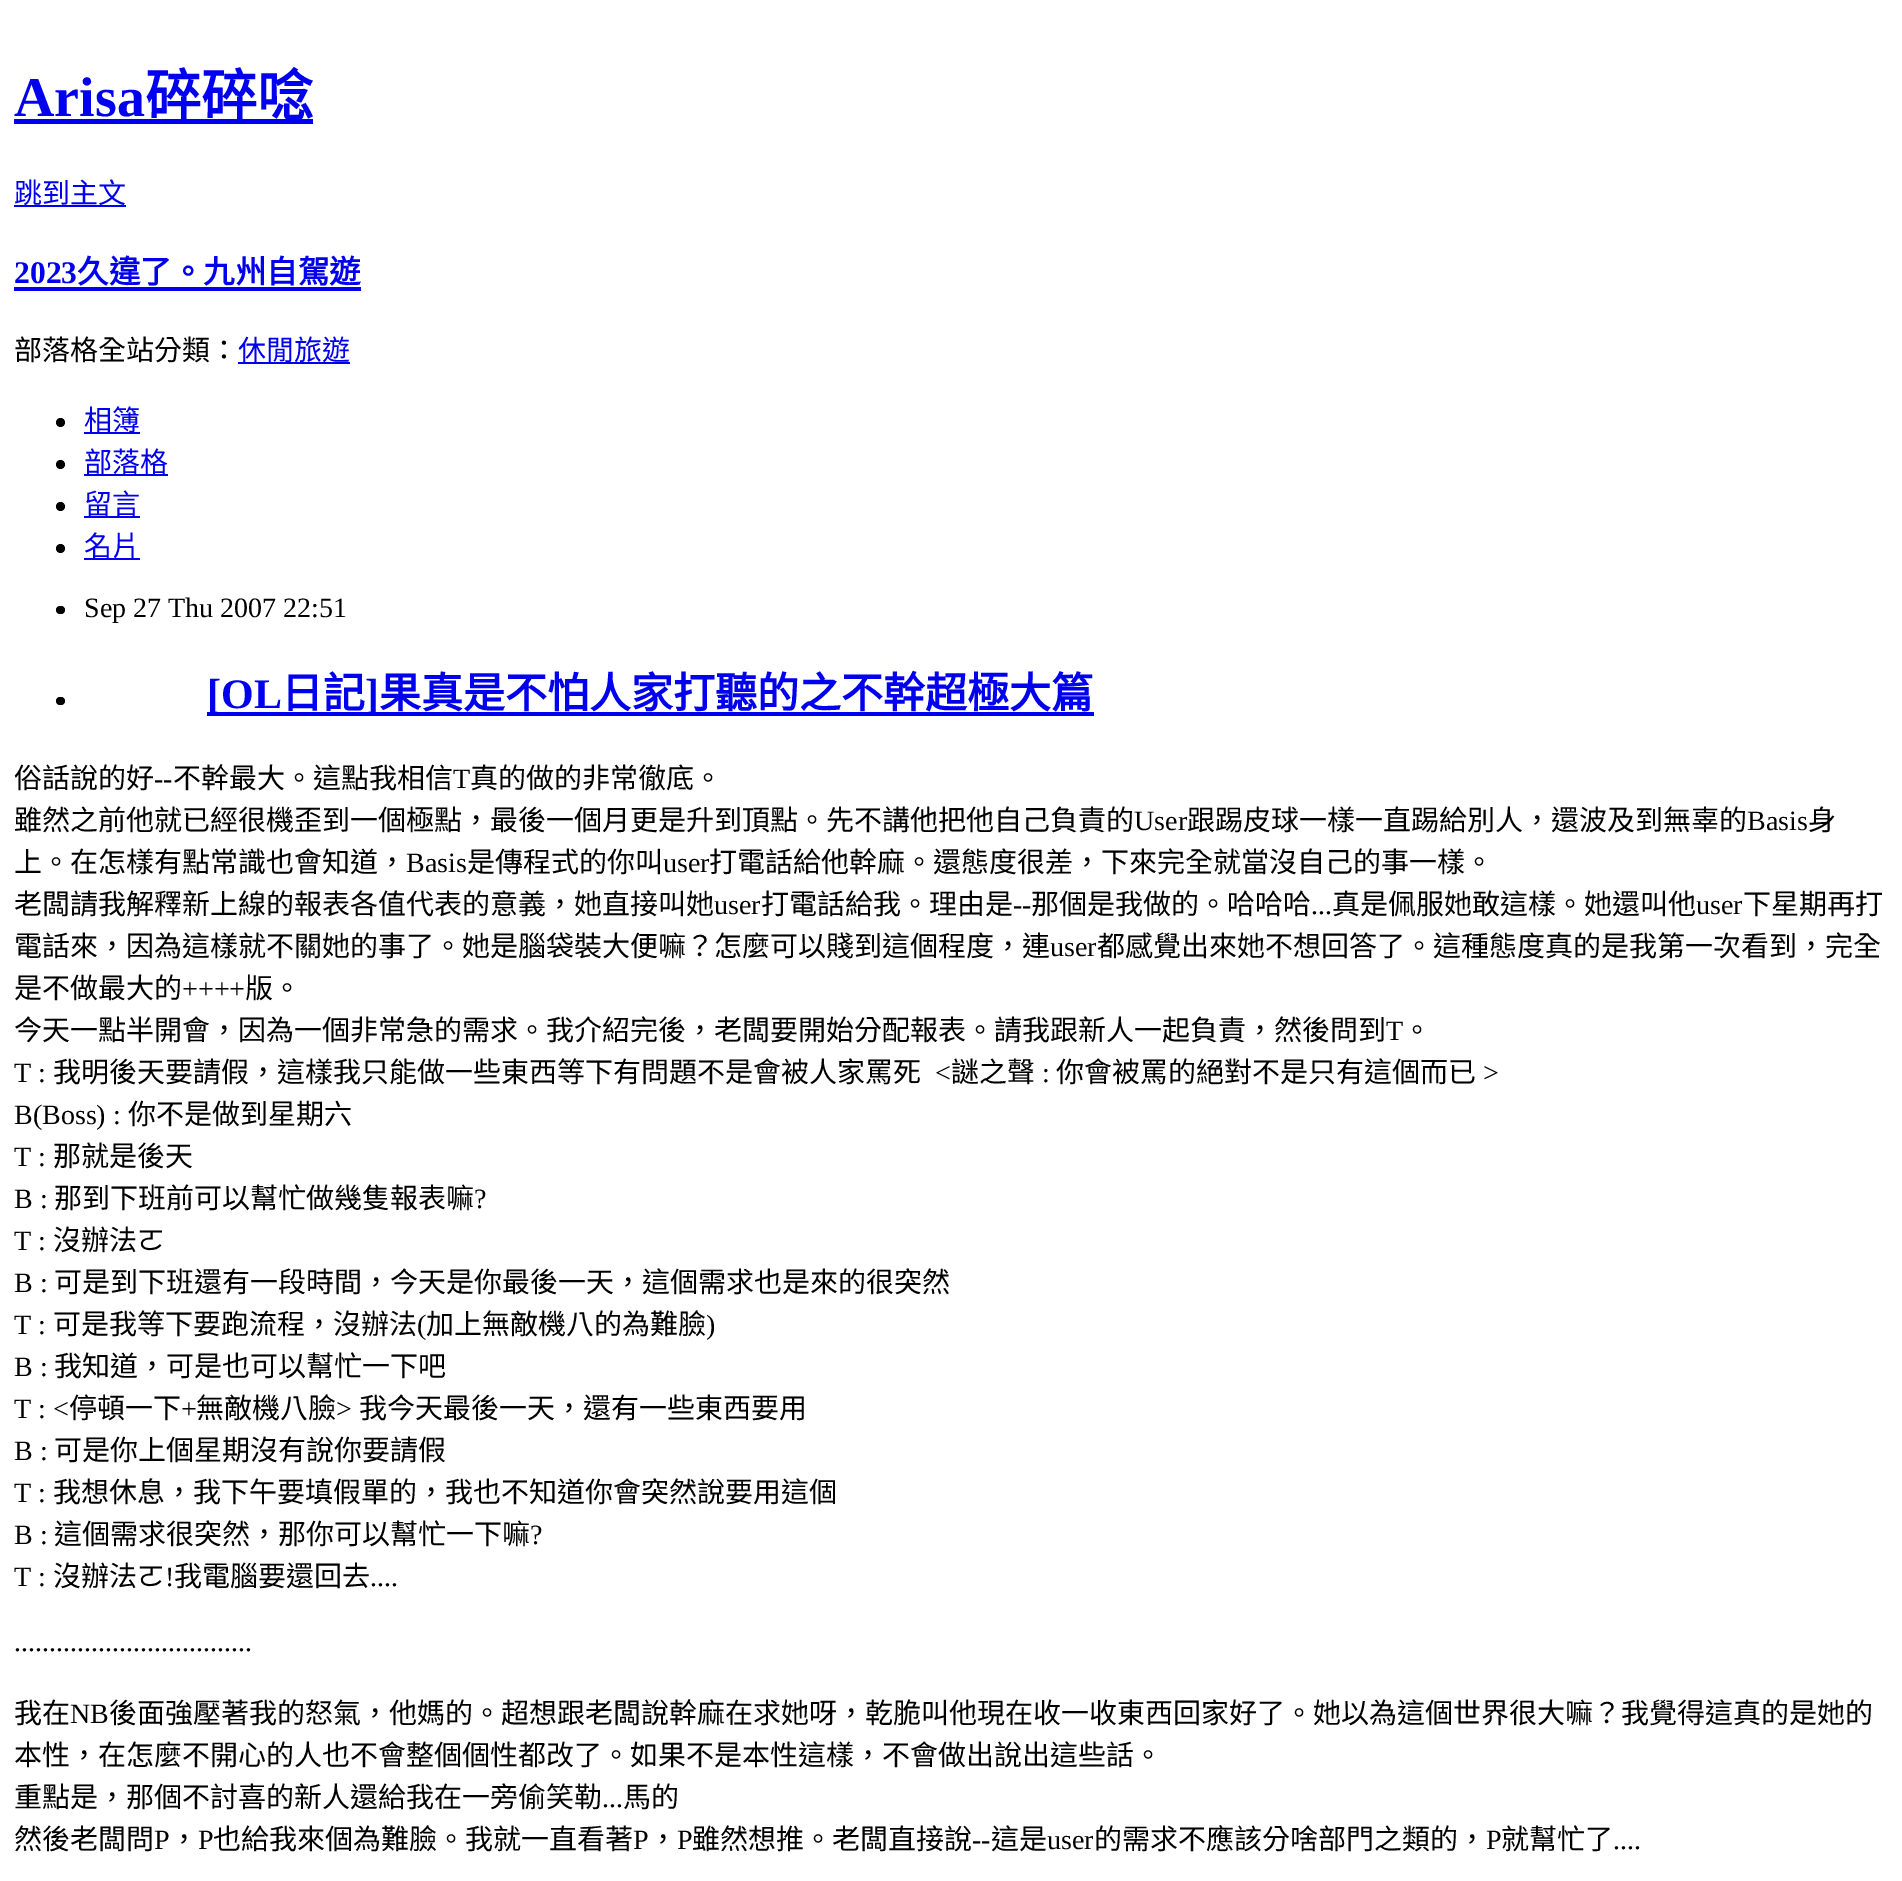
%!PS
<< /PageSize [1902 1881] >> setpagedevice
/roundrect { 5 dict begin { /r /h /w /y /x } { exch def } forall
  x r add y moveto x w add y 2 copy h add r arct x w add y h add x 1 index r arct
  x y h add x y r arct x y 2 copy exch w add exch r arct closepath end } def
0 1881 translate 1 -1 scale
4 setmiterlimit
1 setgray
0 0 1902 1881 rectfill
/LiberationSerif-Bold [56 0 0 -56 0 0] selectfont
0 0 0.933 setrgbcolor
14 116 moveto (Arisa) show
14 119 299 5 rectfill
/NotoSansCJKTC-Bold [56 0 0 -56 0 0] selectfont
145 116 moveto (碎碎唸) show
14 205 112 2 rectfill
/NotoSansCJKTC-Regular [28 0 0 -28 0 0] selectfont
14 203 moveto (跳到主文) show
/LiberationSerif-Bold [31.5 0 0 -31.5 0 0] selectfont
14 283 moveto (2023) show
14 287 347 4 rectfill
/NotoSansCJKTC-Bold [31.5 0 0 -31.5 0 0] selectfont
77 283 moveto (久違了。九州自駕遊) show
/NotoSansCJKTC-Regular [28 0 0 -28 0 0] selectfont
0 setgray
14 360 moveto (部落格全站分類：) show
0 0 0.933 setrgbcolor
238 362 112 2 rectfill
238 360 moveto (休閒旅遊) show
0 setgray
newpath 60.5 422.5 4.5 0 360 arc closepath fill
0 0 0.933 setrgbcolor
84 432 56 2 rectfill
84 430 moveto (相簿) show
0 setgray
newpath 60.5 464.5 4.5 0 360 arc closepath fill
0 0 0.933 setrgbcolor
84 474 84 2 rectfill
84 472 moveto (部落格) show
0 setgray
newpath 60.5 506.5 4.5 0 360 arc closepath fill
0 0 0.933 setrgbcolor
84 516 56 2 rectfill
84 514 moveto (留言) show
0 setgray
newpath 60.5 548.5 4.5 0 360 arc closepath fill
0 0 0.933 setrgbcolor
84 558 56 2 rectfill
84 556 moveto (名片) show
0 setgray
56 606 9 8 4 roundrect fill
/LiberationSerif-Regular [28 0 0 -28 0 0] selectfont
84 617 moveto (Sep 27 Thu 2007 22:51) show
56 697 9 8 4 roundrect fill
0 0 0.933 setrgbcolor
207 712 887 4 rectfill
/LiberationSerif-Bold [42 0 0 -42 0 0] selectfont
207 708 moveto ([OL) show
/NotoSansCJKTC-Bold [42 0 0 -42 0 0] selectfont
281 708 moveto (日記) show
/LiberationSerif-Bold [42 0 0 -42 0 0] selectfont
365 708 moveto (]) show
/NotoSansCJKTC-Bold [42 0 0 -42 0 0] selectfont
379 708 moveto (果真是不怕人家打聽的之不幹超極大篇) show
/NotoSansCJKTC-Regular [28 0 0 -28 0 0] selectfont
0 setgray
14 788 moveto (俗話說的好) show
/LiberationSerif-Regular [28 0 0 -28 0 0] selectfont
154 788 moveto (--) show
/NotoSansCJKTC-Regular [28 0 0 -28 0 0] selectfont
173 788 moveto (不幹最大。這點我相信) show
/LiberationSerif-Regular [28 0 0 -28 0 0] selectfont
453 788 moveto (T) show
/NotoSansCJKTC-Regular [28 0 0 -28 0 0] selectfont
470 788 moveto (真的做的非常徹底。) show
14 830 moveto (雖然之前他就已經很機歪到一個極點，最後一個月更是升到頂點。先不講他把他自己負責的) show
/LiberationSerif-Regular [28 0 0 -28 0 0] selectfont
1134 830 moveto (User) show
/NotoSansCJKTC-Regular [28 0 0 -28 0 0] selectfont
1187 830 moveto (跟踢皮球一樣一直踢給別人，還波及到無辜的) show
/LiberationSerif-Regular [28 0 0 -28 0 0] selectfont
1747 830 moveto (Basis) show
/NotoSansCJKTC-Regular [28 0 0 -28 0 0] selectfont
1808 830 moveto (身) show
14 872 moveto (上。在怎樣有點常識也會知道，) show
/LiberationSerif-Regular [28 0 0 -28 0 0] selectfont
406 872 moveto (Basis) show
/NotoSansCJKTC-Regular [28 0 0 -28 0 0] selectfont
467 872 moveto (是傳程式的你叫) show
/LiberationSerif-Regular [28 0 0 -28 0 0] selectfont
663 872 moveto (user) show
/NotoSansCJKTC-Regular [28 0 0 -28 0 0] selectfont
709 872 moveto (打電話給他幹麻。還態度很差，下來完全就當沒自己的事一樣。) show
14 914 moveto (老闆請我解釋新上線的報表各值代表的意義，她直接叫她) show
/LiberationSerif-Regular [28 0 0 -28 0 0] selectfont
714 914 moveto (user) show
/NotoSansCJKTC-Regular [28 0 0 -28 0 0] selectfont
761 914 moveto (打電話給我。理由是) show
/LiberationSerif-Regular [28 0 0 -28 0 0] selectfont
1013 914 moveto (--) show
/NotoSansCJKTC-Regular [28 0 0 -28 0 0] selectfont
1031 914 moveto (那個是我做的。哈哈哈) show
1332 914 moveto (真是佩服她敢這樣。她還叫他) show
/LiberationSerif-Regular [28 0 0 -28 0 0] selectfont
1696 914 moveto (user) show
/NotoSansCJKTC-Regular [28 0 0 -28 0 0] selectfont
1743 914 moveto (下星期再打) show
/LiberationSerif-Regular [28 0 0 -28 0 0] selectfont
1311 914 moveto (...) show
/NotoSansCJKTC-Regular [28 0 0 -28 0 0] selectfont
14 956 moveto (電話來，因為這樣就不關她的事了。她是腦袋裝大便嘛？怎麼可以賤到這個程度，連) show
/LiberationSerif-Regular [28 0 0 -28 0 0] selectfont
1050 956 moveto (user) show
/NotoSansCJKTC-Regular [28 0 0 -28 0 0] selectfont
1097 956 moveto (都感覺出來她不想回答了。這種態度真的是我第一次看到，完全) show
14 998 moveto (是不做最大的) show
/LiberationSerif-Regular [28 0 0 -28 0 0] selectfont
182 998 moveto (++++) show
/NotoSansCJKTC-Regular [28 0 0 -28 0 0] selectfont
245 998 moveto (版。) show
14 1040 moveto (今天一點半開會，因為一個非常急的需求。我介紹完後，老闆要開始分配報表。請我跟新人一起負責，然後問到) show
/LiberationSerif-Regular [28 0 0 -28 0 0] selectfont
1386 1040 moveto (T) show
/NotoSansCJKTC-Regular [28 0 0 -28 0 0] selectfont
1403 1040 moveto (。) show
/LiberationSerif-Regular [28 0 0 -28 0 0] selectfont
14 1082 moveto (T :) show
/NotoSansCJKTC-Regular [28 0 0 -28 0 0] selectfont
53 1082 moveto (我明後天要請假，這樣我只能做一些東西等下有問題不是會被人家罵死) show
/LiberationSerif-Regular [28 0 0 -28 0 0] selectfont
935 1082 moveto (<) show
/NotoSansCJKTC-Regular [28 0 0 -28 0 0] selectfont
951 1082 moveto (謎之聲) show
/LiberationSerif-Regular [28 0 0 -28 0 0] selectfont
1042 1082 moveto (:) show
/NotoSansCJKTC-Regular [28 0 0 -28 0 0] selectfont
1056 1082 moveto (你會被罵的絕對不是只有這個而已) show
/LiberationSerif-Regular [28 0 0 -28 0 0] selectfont
1483 1082 moveto (>) show
14 1124 moveto (B\(Boss\) :) show
/NotoSansCJKTC-Regular [28 0 0 -28 0 0] selectfont
128 1124 moveto (你不是做到星期六) show
/LiberationSerif-Regular [28 0 0 -28 0 0] selectfont
14 1166 moveto (T :) show
/NotoSansCJKTC-Regular [28 0 0 -28 0 0] selectfont
53 1166 moveto (那就是後天) show
/LiberationSerif-Regular [28 0 0 -28 0 0] selectfont
14 1208 moveto (B :) show
/NotoSansCJKTC-Regular [28 0 0 -28 0 0] selectfont
54 1208 moveto (那到下班前可以幫忙做幾隻報表嘛) show
/LiberationSerif-Regular [28 0 0 -28 0 0] selectfont
474 1208 moveto (?) show
14 1250 moveto (T :) show
/NotoSansCJKTC-Regular [28 0 0 -28 0 0] selectfont
53 1250 moveto (沒辦法ㄛ) show
/LiberationSerif-Regular [28 0 0 -28 0 0] selectfont
14 1292 moveto (B :) show
/NotoSansCJKTC-Regular [28 0 0 -28 0 0] selectfont
54 1292 moveto (可是到下班還有一段時間，今天是你最後一天，這個需求也是來的很突然) show
/LiberationSerif-Regular [28 0 0 -28 0 0] selectfont
14 1334 moveto (T :) show
/NotoSansCJKTC-Regular [28 0 0 -28 0 0] selectfont
53 1334 moveto (可是我等下要跑流程，沒辦法) show
/LiberationSerif-Regular [28 0 0 -28 0 0] selectfont
417 1334 moveto (\() show
/NotoSansCJKTC-Regular [28 0 0 -28 0 0] selectfont
426 1334 moveto (加上無敵機八的為難臉) show
/LiberationSerif-Regular [28 0 0 -28 0 0] selectfont
706 1334 moveto (\)) show
14 1376 moveto (B :) show
/NotoSansCJKTC-Regular [28 0 0 -28 0 0] selectfont
54 1376 moveto (我知道，可是也可以幫忙一下吧) show
/LiberationSerif-Regular [28 0 0 -28 0 0] selectfont
14 1418 moveto (T : <) show
/NotoSansCJKTC-Regular [28 0 0 -28 0 0] selectfont
69 1418 moveto (停頓一下) show
/LiberationSerif-Regular [28 0 0 -28 0 0] selectfont
181 1418 moveto (+) show
/NotoSansCJKTC-Regular [28 0 0 -28 0 0] selectfont
196 1418 moveto (無敵機八臉) show
/LiberationSerif-Regular [28 0 0 -28 0 0] selectfont
336 1418 moveto (>) show
/NotoSansCJKTC-Regular [28 0 0 -28 0 0] selectfont
359 1418 moveto (我今天最後一天，還有一些東西要用) show
/LiberationSerif-Regular [28 0 0 -28 0 0] selectfont
14 1460 moveto (B :) show
/NotoSansCJKTC-Regular [28 0 0 -28 0 0] selectfont
54 1460 moveto (可是你上個星期沒有說你要請假) show
/LiberationSerif-Regular [28 0 0 -28 0 0] selectfont
14 1502 moveto (T :) show
/NotoSansCJKTC-Regular [28 0 0 -28 0 0] selectfont
53 1502 moveto (我想休息，我下午要填假單的，我也不知道你會突然說要用這個) show
/LiberationSerif-Regular [28 0 0 -28 0 0] selectfont
14 1544 moveto (B :) show
/NotoSansCJKTC-Regular [28 0 0 -28 0 0] selectfont
54 1544 moveto (這個需求很突然，那你可以幫忙一下嘛) show
/LiberationSerif-Regular [28 0 0 -28 0 0] selectfont
530 1544 moveto (?) show
14 1586 moveto (T :) show
/NotoSansCJKTC-Regular [28 0 0 -28 0 0] selectfont
53 1586 moveto (沒辦法ㄛ) show
/LiberationSerif-Regular [28 0 0 -28 0 0] selectfont
165 1586 moveto (!) show
/NotoSansCJKTC-Regular [28 0 0 -28 0 0] selectfont
174 1586 moveto (我電腦要還回去) show
/LiberationSerif-Regular [28 0 0 -28 0 0] selectfont
370 1586 moveto (....) show
14 1651 moveto (..................................) show
/NotoSansCJKTC-Regular [28 0 0 -28 0 0] selectfont
14 1723 moveto (我在) show
/LiberationSerif-Regular [28 0 0 -28 0 0] selectfont
70 1723 moveto (NB) show
/NotoSansCJKTC-Regular [28 0 0 -28 0 0] selectfont
109 1723 moveto (後面強壓著我的怒氣，他媽的。超想跟老闆說幹麻在求她呀，乾脆叫他現在收一收東西回家好了。她以為這個世界很大嘛？我覺得這真的是她的) show
14 1765 moveto (本性，在怎麼不開心的人也不會整個個性都改了。如果不是本性這樣，不會做出說出這些話。) show
14 1807 moveto (重點是，那個不討喜的新人還給我在一旁偷笑勒) show
/LiberationSerif-Regular [28 0 0 -28 0 0] selectfont
602 1807 moveto (...) show
/NotoSansCJKTC-Regular [28 0 0 -28 0 0] selectfont
623 1807 moveto (馬的) show
14 1849 moveto (然後老闆問) show
/LiberationSerif-Regular [28 0 0 -28 0 0] selectfont
154 1849 moveto (P) show
/NotoSansCJKTC-Regular [28 0 0 -28 0 0] selectfont
170 1849 moveto (，) show
/LiberationSerif-Regular [28 0 0 -28 0 0] selectfont
198 1849 moveto (P) show
/NotoSansCJKTC-Regular [28 0 0 -28 0 0] selectfont
213 1849 moveto (也給我來個為難臉。我就一直看著) show
/LiberationSerif-Regular [28 0 0 -28 0 0] selectfont
633 1849 moveto (P) show
/NotoSansCJKTC-Regular [28 0 0 -28 0 0] selectfont
649 1849 moveto (，) show
/LiberationSerif-Regular [28 0 0 -28 0 0] selectfont
677 1849 moveto (P) show
/NotoSansCJKTC-Regular [28 0 0 -28 0 0] selectfont
692 1849 moveto (雖然想推。老闆直接說) show
/LiberationSerif-Regular [28 0 0 -28 0 0] selectfont
972 1849 moveto (--) show
/NotoSansCJKTC-Regular [28 0 0 -28 0 0] selectfont
991 1849 moveto (這是) show
/LiberationSerif-Regular [28 0 0 -28 0 0] selectfont
1047 1849 moveto (user) show
/NotoSansCJKTC-Regular [28 0 0 -28 0 0] selectfont
1094 1849 moveto (的需求不應該分啥部門之類的，) show
/LiberationSerif-Regular [28 0 0 -28 0 0] selectfont
1486 1849 moveto (P) show
/NotoSansCJKTC-Regular [28 0 0 -28 0 0] selectfont
1501 1849 moveto (就幫忙了) show
/LiberationSerif-Regular [28 0 0 -28 0 0] selectfont
1613 1849 moveto (....) show
showpage
